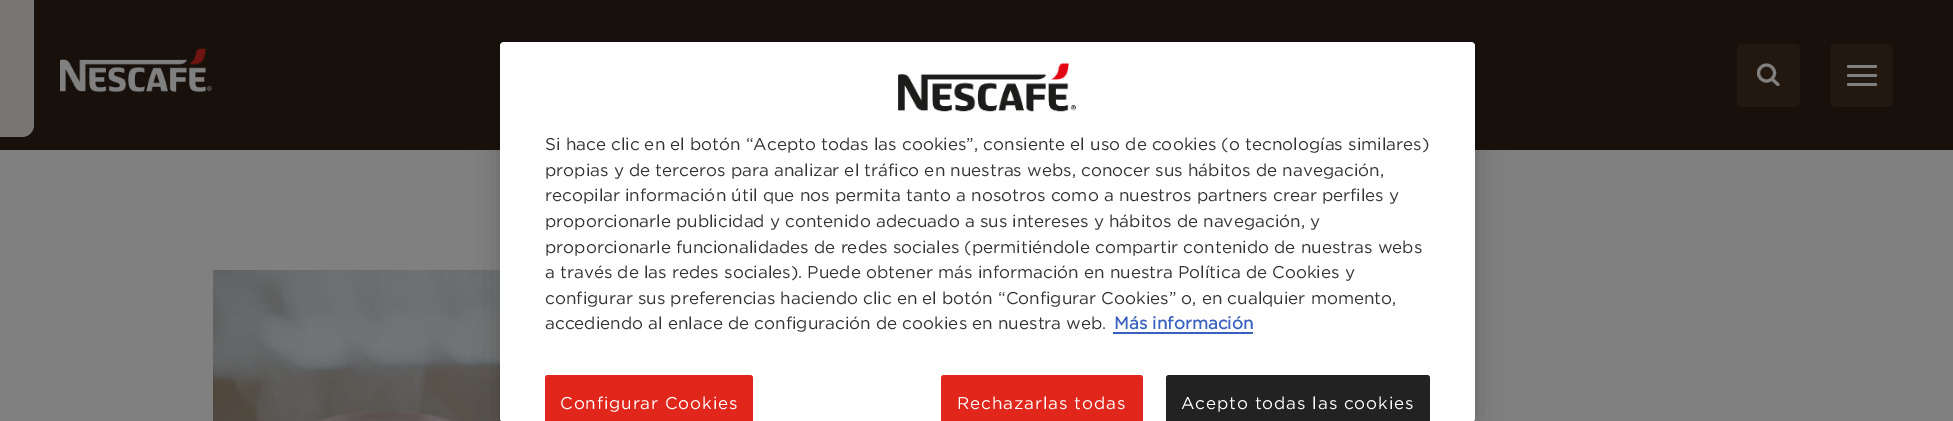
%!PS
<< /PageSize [1953 421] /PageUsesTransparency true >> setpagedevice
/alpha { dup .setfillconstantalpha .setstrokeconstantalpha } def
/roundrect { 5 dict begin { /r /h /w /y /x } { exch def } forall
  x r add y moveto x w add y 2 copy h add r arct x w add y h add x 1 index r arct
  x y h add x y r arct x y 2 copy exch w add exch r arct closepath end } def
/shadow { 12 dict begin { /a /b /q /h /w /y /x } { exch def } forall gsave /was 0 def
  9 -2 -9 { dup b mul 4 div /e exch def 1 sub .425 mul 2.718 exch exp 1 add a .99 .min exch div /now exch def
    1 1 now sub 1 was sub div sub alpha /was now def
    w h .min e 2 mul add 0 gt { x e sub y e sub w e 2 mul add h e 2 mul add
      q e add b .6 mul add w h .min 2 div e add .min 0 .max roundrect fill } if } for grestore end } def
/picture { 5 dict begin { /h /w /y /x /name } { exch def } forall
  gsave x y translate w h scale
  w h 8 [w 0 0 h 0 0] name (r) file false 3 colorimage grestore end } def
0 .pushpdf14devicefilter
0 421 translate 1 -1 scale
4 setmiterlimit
0.502 setgray
0 0 1953 421 rectfill
0.094 0.067 0.043 setrgbcolor
0 0 1953 150 rectfill
(img1.rgb) 60 48 152 45 picture
0.133 0.094 0.063 setrgbcolor
1737 44 63 63 6 roundrect fill
0.502 setgray
3 setlinewidth
newpath 1766.5 73 8 0 360 arc closepath stroke
1 setlinecap
1 setlinejoin
newpath 1778 84.5 moveto 1772.5 79.5 lineto stroke
0.133 0.094 0.063 setrgbcolor
1830 44 63 63 6 roundrect fill
0.502 setgray
1847 65 30 3 1.5 roundrect fill
1847 74 30 3 1.5 roundrect fill
1847 83 30 3 1.5 roundrect fill
0.475 0.467 0.459 setrgbcolor
newpath 22 137 moveto 0 137 lineto 0 -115 lineto 22 -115 lineto 29 -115 34 -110 34 -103 curveto 34 125 lineto 34 131 29 137 22 137 curveto closepath fill
(img2.rgb) 213 270 289 151 picture
0 setgray
500 42 975 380 4 13.5 0.2 shadow
1 setgray
500 42 975 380 4 roundrect fill
(img3.rgb) 898 63 178 49 picture
/Gotham-Regular [17.07 0 0 -17.07 0 0] selectfont
0.2 setgray
545 150 moveto (Si hace clic en el botón “Acepto todas las cookies”, consiente el uso de cookies \(o tecnologías similares\)) show
545 176 moveto (propias y de terceros para analizar el tráfico en nuestras webs, conocer sus hábitos de navegación,) show
545 201 moveto (recopilar información útil que nos permita tanto a nosotros como a nuestros partners crear perfiles y) show
545 227 moveto (proporcionarle publicidad y contenido adecuado a sus intereses y hábitos de navegación, y) show
545 253 moveto (proporcionarle funcionalidades de redes sociales \(permitiéndole compartir contenido de nuestras webs) show
545 278 moveto (a través de las redes sociales\). Puede obtener más información en nuestra Política de Cookies y) show
545 304 moveto (configurar sus preferencias haciendo clic en el botón “Configurar Cookies” o, en cualquier momento,) show
545 329 moveto (accediendo al enlace de configuración de cookies en nuestra web.) show
/Gotham-Bold [17.07 0 0 -17.07 0 0] selectfont
0.22 0.376 0.745 setrgbcolor
1114 329 moveto (Más información) show
1113 332 140 2 rectfill
0.882 0.149 0.11 setrgbcolor
newpath 548 375 moveto 750 375 lineto 751.5 375 753 376.5 753 378 curveto 753 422 lineto 545 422 lineto 545 378 lineto 545 376.5 546.5 375 548 375 curveto closepath fill
/Gotham-Regular [17.07 0 0 -17.07 0 0] selectfont
1 setgray
560 409 moveto 0.85 0 (Configurar Cookies) ashow
0.882 0.149 0.11 setrgbcolor
newpath 944 375 moveto 1140 375 lineto 1141.5 375 1143 376.5 1143 378 curveto 1143 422 lineto 941 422 lineto 941 378 lineto 941 376.5 942.5 375 944 375 curveto closepath fill
1 setgray
957 409 moveto 0.85 0 (Rechazarlas todas) ashow
0.133 setgray
newpath 1169 375 moveto 1427 375 lineto 1428.5 375 1430 376.5 1430 378 curveto 1430 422 lineto 1166 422 lineto 1166 378 lineto 1166 376.5 1167.5 375 1169 375 curveto closepath fill
1 setgray
1181 409 moveto 0.85 0 (Acepto todas las cookies) ashow
.poppdf14devicefilter showpage
